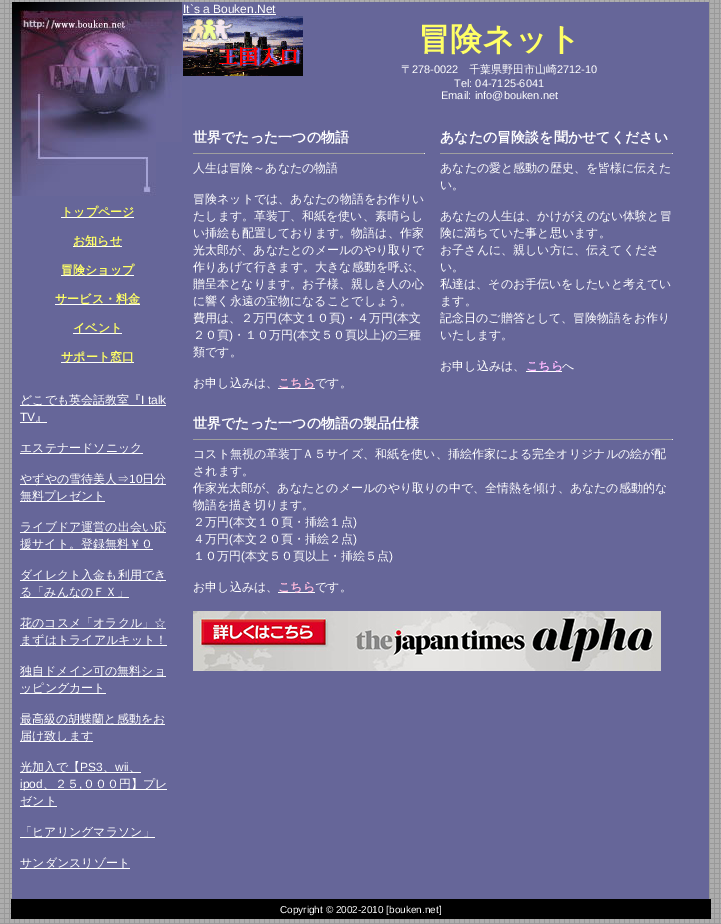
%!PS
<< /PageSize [721 924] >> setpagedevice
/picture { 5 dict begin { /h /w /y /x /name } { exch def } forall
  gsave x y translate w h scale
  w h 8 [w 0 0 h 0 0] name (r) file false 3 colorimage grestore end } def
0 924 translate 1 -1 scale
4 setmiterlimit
1 setgray
0 0 721 924 rectfill
(img1.rgb) 0 0 721 924 picture
0.4 0.4 0.6 setrgbcolor
12 2 697 897 rectfill
/LiberationSans-Regular [12 0 0 -12 0 0] selectfont
1 setgray
183 13 moveto (It`s a Bouken.Net) show
183 14 93 1 rectfill
(img2.rgb) 183 16 120 60 picture
/WenQuanYiZenHei-Bold [32 0 0 -32 0 0] selectfont
1 1 0.4 setrgbcolor
418 50 moveto (冒険ネット) show
/WenQuanYiZenHei-Medium [11 0 0 -11 0 0] selectfont
1 setgray
401 73 moveto (〒) show
/LiberationSans-Regular [11 0 0 -11 0 0] selectfont
412 73 moveto (278-0022) show
/WenQuanYiZenHei-Medium [11 0 0 -11 0 0] selectfont
469 73 moveto (千葉県野田市山崎) show
/LiberationSans-Regular [11 0 0 -11 0 0] selectfont
557 73 moveto (2712-10) show
454 87 moveto (Tel: 04-7125-6041) show
441 99 moveto (Email: info@bouken.net) show
(img3.rgb) 12 2 170 140 picture
(img4.rgb) 12 142 144 54 picture
61 217 73 1 rectfill
/WenQuanYiZenHei-Bold [12 0 0 -12 0 0] selectfont
1 1 0.4 setrgbcolor
61 216 moveto (トップページ) show
1 setgray
73 246 49 1 rectfill
1 1 0.4 setrgbcolor
73 245 moveto (お知らせ) show
1 setgray
61 275 73 1 rectfill
1 1 0.4 setrgbcolor
61 274 moveto (冒険ショップ) show
1 setgray
55 304 85 1 rectfill
1 1 0.4 setrgbcolor
55 303 moveto (サービス・料金) show
1 setgray
73 333 49 1 rectfill
1 1 0.4 setrgbcolor
73 332 moveto (イベント) show
1 setgray
61 362 73 1 rectfill
1 1 0.4 setrgbcolor
61 361 moveto (サポート窓口) show
1 setgray
20 405 146 1 rectfill
/WenQuanYiZenHei-Medium [12 0 0 -12 0 0] selectfont
20 404 moveto (どこでも英会話教室『) show
/LiberationSans-Regular [12 0 0 -12 0 0] selectfont
141 404 moveto (I talk) show
20 421 moveto (TV) show
20 422 27 1 rectfill
/WenQuanYiZenHei-Medium [12 0 0 -12 0 0] selectfont
35 421 moveto (』) show
20 453 123 1 rectfill
20 452 moveto (エステナードソニック) show
20 484 146 1 rectfill
20 483 moveto (やずやの雪待美人⇒) show
/LiberationSans-Regular [12 0 0 -12 0 0] selectfont
129 483 moveto (10) show
/WenQuanYiZenHei-Medium [12 0 0 -12 0 0] selectfont
142 483 moveto (日分) show
20 501 85 1 rectfill
20 500 moveto (無料プレゼント) show
20 532 146 1 rectfill
20 531 moveto (ライブドア運営の出会い応) show
20 549 133 1 rectfill
20 548 moveto (援サイト。登録無料￥０) show
20 580 146 1 rectfill
20 579 moveto (ダイレクト入金も利用でき) show
20 597 109 1 rectfill
20 596 moveto (る「みんなのＦＸ」) show
20 628 146 1 rectfill
20 627 moveto (花のコスメ「オラクル」☆) show
20 645 147 1 rectfill
20 644 moveto (まずはトライアルキット！) show
20 676 146 1 rectfill
20 675 moveto (独自ドメイン可の無料ショ) show
20 693 86 1 rectfill
20 692 moveto (ッピングカート) show
20 724 145 1 rectfill
20 723 moveto (最高級の胡蝶蘭と感動をお) show
20 741 73 1 rectfill
20 740 moveto (届け致します) show
20 772 121 1 rectfill
20 771 moveto (光加入で【) show
/LiberationSans-Regular [12 0 0 -12 0 0] selectfont
80 771 moveto (PS3) show
115 771 moveto (wii) show
/WenQuanYiZenHei-Medium [12 0 0 -12 0 0] selectfont
103 771 moveto (、) show
129 771 moveto (、) show
20 789 147 1 rectfill
/LiberationSans-Regular [12 0 0 -12 0 0] selectfont
20 788 moveto (ipod) show
/WenQuanYiZenHei-Medium [12 0 0 -12 0 0] selectfont
43 788 moveto (、２５ ０００円】プレ) show
/LiberationSans-Regular [12 0 0 -12 0 0] selectfont
79 788 moveto (,) show
20 806 37 1 rectfill
/WenQuanYiZenHei-Medium [12 0 0 -12 0 0] selectfont
20 805 moveto (ゼント) show
20 837 135 1 rectfill
20 836 moveto (「ヒアリングマラソン」) show
20 868 110 1 rectfill
20 867 moveto (サンダンスリゾート) show
/WenQuanYiZenHei-Bold [14 0 0 -14 0 0] selectfont
193 142 moveto (世界でたった一つの物語) show
0.624 setgray
193 153 232 1 rectfill
0.933 setgray
424 153 1 1 rectfill
/WenQuanYiZenHei-Medium [12 0 0 -12 0 0] selectfont
1 setgray
193 172 moveto (人生は冒険～あなたの物語) show
193 203 moveto (冒険ネットでは、あなたの物語をお作りい) show
193 220 moveto (たします。革装丁、和紙を使い、素晴らし) show
193 237 moveto (い挿絵も配置しております。物語は、作家) show
193 254 moveto (光太郎が、あなたとのメールのやり取りで) show
193 271 moveto (作りあげて行きます。大きな感動を呼ぶ、) show
193 288 moveto (贈呈本となります。お子様、親しき人の心) show
193 305 moveto (に響く永遠の宝物になることでしょう。) show
193 322 moveto (費用は、２万円) show
/LiberationSans-Regular [12 0 0 -12 0 0] selectfont
278 322 moveto (\() show
/WenQuanYiZenHei-Medium [12 0 0 -12 0 0] selectfont
281 322 moveto (本文１０頁) show
/LiberationSans-Regular [12 0 0 -12 0 0] selectfont
341 322 moveto (\)) show
/WenQuanYiZenHei-Medium [12 0 0 -12 0 0] selectfont
345 322 moveto (・４万円) show
/LiberationSans-Regular [12 0 0 -12 0 0] selectfont
393 322 moveto (\() show
/WenQuanYiZenHei-Medium [12 0 0 -12 0 0] selectfont
397 322 moveto (本文) show
193 339 moveto (２０頁) show
/LiberationSans-Regular [12 0 0 -12 0 0] selectfont
229 339 moveto (\)) show
/WenQuanYiZenHei-Medium [12 0 0 -12 0 0] selectfont
233 339 moveto (・１０万円) show
/LiberationSans-Regular [12 0 0 -12 0 0] selectfont
293 339 moveto (\() show
/WenQuanYiZenHei-Medium [12 0 0 -12 0 0] selectfont
297 339 moveto (本文５０頁以上) show
/LiberationSans-Regular [12 0 0 -12 0 0] selectfont
381 339 moveto (\)) show
/WenQuanYiZenHei-Medium [12 0 0 -12 0 0] selectfont
385 339 moveto (の三種) show
193 356 moveto (類です。) show
193 387 moveto (お申し込みは、) show
278 388 37 1 rectfill
/WenQuanYiZenHei-Bold [12 0 0 -12 0 0] selectfont
1 0.733 0.867 setrgbcolor
278 387 moveto (こちら) show
/WenQuanYiZenHei-Medium [12 0 0 -12 0 0] selectfont
1 setgray
315 387 moveto (です。) show
/WenQuanYiZenHei-Bold [14 0 0 -14 0 0] selectfont
440 142 moveto (あなたの冒険談を聞かせてください) show
0.624 setgray
440 153 233 1 rectfill
0.933 setgray
672 153 1 1 rectfill
/WenQuanYiZenHei-Medium [12 0 0 -12 0 0] selectfont
1 setgray
440 172 moveto (あなたの愛と感動の歴史、を皆様に伝えた) show
440 189 moveto (い。) show
440 220 moveto (あなたの人生は、かけがえのない体験と冒) show
440 237 moveto (険に満ちていた事と思います。) show
440 254 moveto (お子さんに、親しい方に、伝えてくださ) show
440 271 moveto (い。) show
440 288 moveto (私達は、そのお手伝いをしたいと考えてい) show
440 305 moveto (ます。) show
440 322 moveto (記念日のご贈答として、冒険物語をお作り) show
440 339 moveto (いたします。) show
440 370 moveto (お申し込みは、) show
526 371 36 1 rectfill
/WenQuanYiZenHei-Bold [12 0 0 -12 0 0] selectfont
1 0.725 1 setrgbcolor
526 370 moveto (こちら) show
/WenQuanYiZenHei-Medium [12 0 0 -12 0 0] selectfont
1 setgray
562 370 moveto (へ) show
/WenQuanYiZenHei-Bold [14 0 0 -14 0 0] selectfont
193 428 moveto (世界でたった一つの物語の製品仕様) show
0.624 setgray
193 439 480 1 rectfill
0.933 setgray
672 439 1 1 rectfill
/WenQuanYiZenHei-Medium [12 0 0 -12 0 0] selectfont
1 setgray
193 458 moveto (コスト無視の革装丁Ａ５サイズ、和紙を使い、挿絵作家による完全オリジナルの絵が配) show
193 475 moveto (されます。) show
193 492 moveto (作家光太郎が、あなたとのメールのやり取りの中で、全情熱を傾け、あなたの感動的な) show
193 509 moveto (物語を描き切ります。) show
193 526 moveto (２万円) show
/LiberationSans-Regular [12 0 0 -12 0 0] selectfont
229 526 moveto (\() show
/WenQuanYiZenHei-Medium [12 0 0 -12 0 0] selectfont
233 526 moveto (本文１０頁・挿絵１点) show
/LiberationSans-Regular [12 0 0 -12 0 0] selectfont
353 526 moveto (\)) show
/WenQuanYiZenHei-Medium [12 0 0 -12 0 0] selectfont
193 543 moveto (４万円) show
/LiberationSans-Regular [12 0 0 -12 0 0] selectfont
229 543 moveto (\() show
/WenQuanYiZenHei-Medium [12 0 0 -12 0 0] selectfont
233 543 moveto (本文２０頁・挿絵２点) show
/LiberationSans-Regular [12 0 0 -12 0 0] selectfont
353 543 moveto (\)) show
/WenQuanYiZenHei-Medium [12 0 0 -12 0 0] selectfont
193 560 moveto (１０万円) show
/LiberationSans-Regular [12 0 0 -12 0 0] selectfont
241 560 moveto (\() show
/WenQuanYiZenHei-Medium [12 0 0 -12 0 0] selectfont
245 560 moveto (本文５０頁以上・挿絵５点) show
/LiberationSans-Regular [12 0 0 -12 0 0] selectfont
389 560 moveto (\)) show
/WenQuanYiZenHei-Medium [12 0 0 -12 0 0] selectfont
193 591 moveto (お申し込みは、) show
278 592 37 1 rectfill
/WenQuanYiZenHei-Bold [12 0 0 -12 0 0] selectfont
1 0.733 0.867 setrgbcolor
278 591 moveto (こちら) show
/WenQuanYiZenHei-Medium [12 0 0 -12 0 0] selectfont
1 setgray
315 591 moveto (です。) show
(img5.rgb) 193 611 468 60 picture
0 setgray
11 899 700 20 rectfill
/LiberationSans-Regular [10 0 0 -10 0 0] selectfont
1 setgray
280 913 moveto (Copyright © 2002-2010 [bouken.net]) show
showpage
